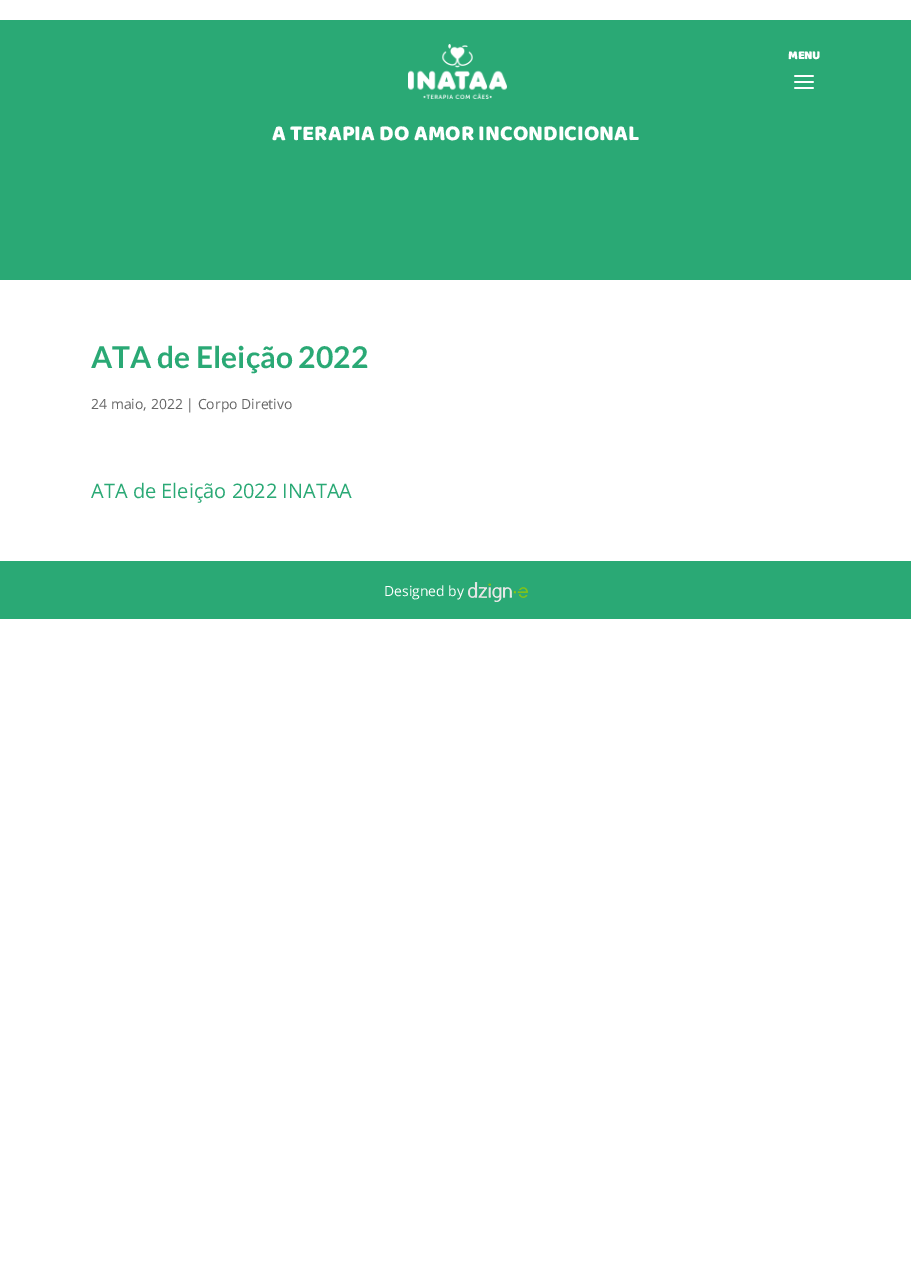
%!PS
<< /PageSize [911 1286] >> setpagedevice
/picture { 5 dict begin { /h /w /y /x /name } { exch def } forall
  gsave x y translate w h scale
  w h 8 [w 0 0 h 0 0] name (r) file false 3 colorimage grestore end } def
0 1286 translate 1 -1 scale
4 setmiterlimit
1 setgray
0 0 911 1286 rectfill
0.165 0.663 0.459 setrgbcolor
0 20 911 260 rectfill
/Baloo-Bold [12 0 0 -12 0 0] selectfont
1 setgray
788 59 moveto (MENU) show
(img1.rgb) 794 75 20 14 picture
(img2.rgb) 408 44 99 55 picture
/Baloo-Regular [22 0 0 -22 0 0] selectfont
272 140 moveto (A TERAPIA DO AMOR INCONDICIONAL) show
/Lato-Bold [30 0 0 -30 0 0] selectfont
0.165 0.663 0.459 setrgbcolor
91 368 moveto (ATA de Eleição 2022) show
/OpenSans-Regular [14 0 0 -14 0 0] selectfont
0.4 setgray
91 409 moveto (24 maio, 2022 | Corpo Diretivo) show
/OpenSans-Regular [20 0 0 -20 0 0] selectfont
0.165 0.663 0.459 setrgbcolor
91 498 moveto (ATA de Eleição 2022 INATAA) show
0 561 911 58 rectfill
/OpenSans-Regular [14 0 0 -14 0 0] selectfont
1 setgray
384 596 moveto (Designed by) show
(img3.rgb) 468 582 60 20 picture
showpage
